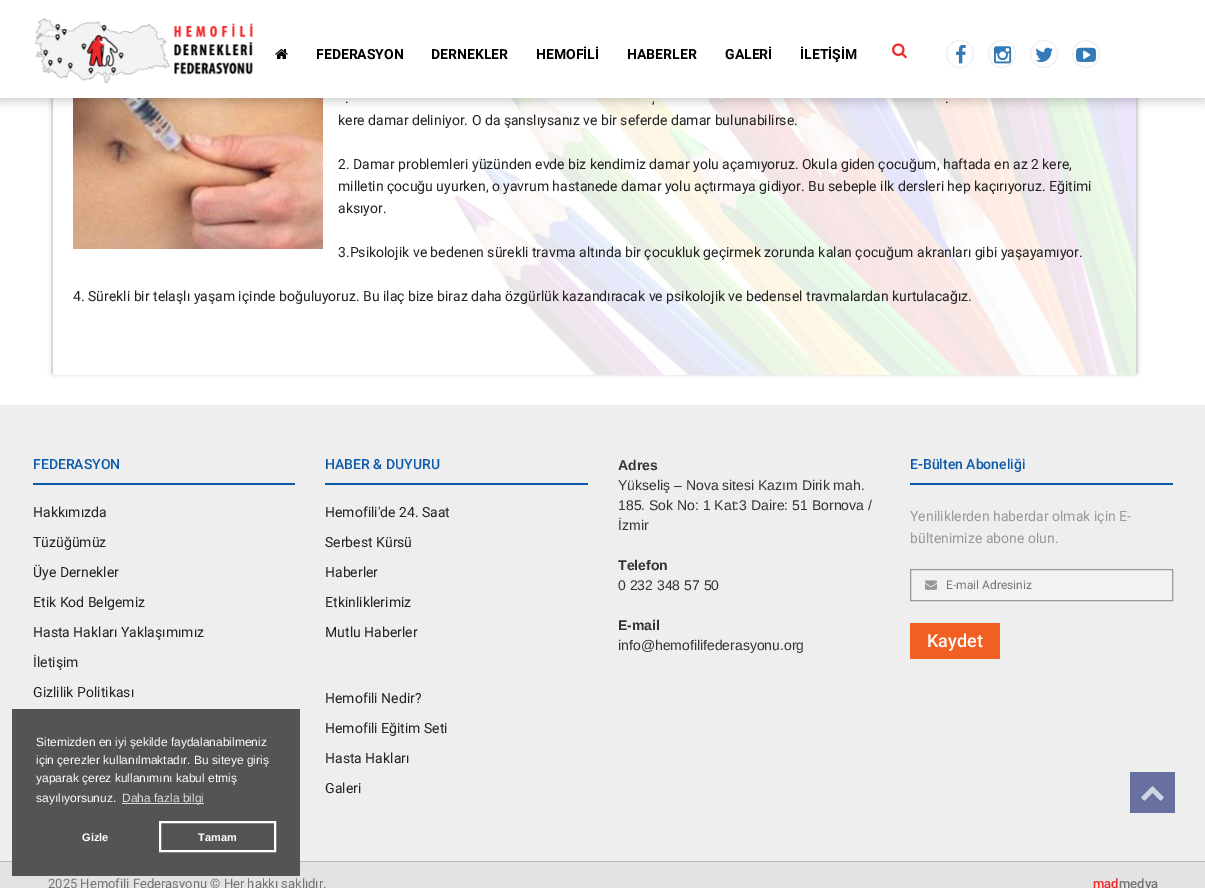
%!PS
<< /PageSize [1205 888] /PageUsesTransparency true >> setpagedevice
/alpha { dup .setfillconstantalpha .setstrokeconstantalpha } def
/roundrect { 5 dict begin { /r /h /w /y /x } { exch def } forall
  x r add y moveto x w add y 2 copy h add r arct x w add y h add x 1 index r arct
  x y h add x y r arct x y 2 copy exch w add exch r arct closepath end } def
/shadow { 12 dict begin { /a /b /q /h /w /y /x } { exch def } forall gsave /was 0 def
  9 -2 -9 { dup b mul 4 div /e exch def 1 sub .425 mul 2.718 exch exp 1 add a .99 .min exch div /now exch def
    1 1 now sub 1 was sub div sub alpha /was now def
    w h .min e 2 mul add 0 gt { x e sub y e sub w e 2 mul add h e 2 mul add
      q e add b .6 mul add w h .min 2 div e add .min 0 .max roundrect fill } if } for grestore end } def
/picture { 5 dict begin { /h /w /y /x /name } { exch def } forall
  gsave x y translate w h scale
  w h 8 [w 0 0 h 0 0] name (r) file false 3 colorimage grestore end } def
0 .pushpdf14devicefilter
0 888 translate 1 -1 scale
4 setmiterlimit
1 setgray
0 0 1205 888 rectfill
gsave
newpath 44 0 moveto 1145 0 lineto 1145 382 lineto 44 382 lineto closepath 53 -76 moveto 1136 -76 lineto 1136 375 lineto 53 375 lineto closepath eoclip newpath
0 setgray
53 -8 1083 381 0 2.5 0.4 shadow
grestore
(img8.rgb) 454 98 682 277 picture
(img9.rgb) 73 98 250 151 picture
0 setgray
0 3 1205 98 0 5 0.2 shadow
1 setgray
0 0 1205 98 rectfill
(img1.rgb) 35 18 218 66 picture
(img2.rgb) 275 49 13 10 picture
/Roboto-Bold [14 0 0 -14 0 0] selectfont
0 setgray
316 59 moveto (FEDERASYON) show
431 59 moveto (DERNEKLER) show
536 59 moveto (HEMOFİLİ) show
627 59 moveto (HABERLER) show
725 59 moveto (GALERİ) show
800 59 moveto (İLETİŞİM) show
(img3.rgb) 892 43 15 16 picture
0.937 setgray
newpath 960 54 13.5 0 360 arc closepath stroke
(img4.rgb) 956 44 10 20 picture
newpath 1002 54 13.5 0 360 arc closepath stroke
(img5.rgb) 994 46 18 18 picture
newpath 1044 54 13.5 0 360 arc closepath stroke
(img6.rgb) 1035 47 18 15 picture
newpath 1086 54 13.5 0 360 arc closepath stroke
(img7.rgb) 1076 47 20 15 picture
/Roboto-Regular [14 0 0 -14 0 0] selectfont
0.133 setgray
345 103 moveto (.) show
652 103 moveto (,) show
945 103 moveto (.) show
338 125 moveto (kere damar deliniyor. O da şanslıysanız ve bir seferde damar bulunabilirse.) show
338 169 moveto (2. Damar problemleri yüzünden evde biz kendimiz damar yolu açamıyoruz. Okula giden çocuğum, haftada en az 2 kere,) show
338 191 moveto (milletin çocuğu uyurken, o yavrum hastanede damar yolu açtırmaya gidiyor. Bu sebeple ilk dersleri hep kaçırıyoruz. Eğitimi) show
338 213 moveto (aksıyor.) show
338 257 moveto (3.Psikolojik ve bedenen sürekli travma altında bir çocukluk geçirmek zorunda kalan çocuğum akranları gibi yaşayamıyor.) show
73 301 moveto (4. Sürekli bir telaşlı yaşam içinde boğuluyoruz. Bu ilaç bize biraz daha özgürlük kazandıracak ve psikolojik ve bedensel travmalardan kurtulacağız.) show
0.933 setgray
0 405 1205 456 rectfill
0.051 0.349 0.663 setrgbcolor
33 483 262 2 rectfill
/Roboto-Medium [14 0 0 -14 0 0] selectfont
33 469 moveto (FEDERASYON) show
/Roboto-Regular [14 0 0 -14 0 0] selectfont
0.133 setgray
33 517 moveto (Hakkımızda) show
33 547 moveto (Tüzüğümüz) show
33 577 moveto (Üye Dernekler) show
33 607 moveto (Etik Kod Belgemiz) show
33 637 moveto (Hasta Hakları Yaklaşımımız) show
33 667 moveto (İletişim) show
33 697 moveto (Gizlilik Politikası) show
0.051 0.349 0.663 setrgbcolor
325 483 263 2 rectfill
/Roboto-Medium [14 0 0 -14 0 0] selectfont
325 469 moveto (HABER & DUYURU) show
/Roboto-Regular [14 0 0 -14 0 0] selectfont
0.133 setgray
325 517 moveto (Hemofili'de 24. Saat) show
325 547 moveto (Serbest Kürsü) show
325 577 moveto (Haberler) show
325 607 moveto (Etkinliklerimiz) show
325 637 moveto (Mutlu Haberler) show
325 703 moveto (Hemofili Nedir?) show
325 733 moveto (Hemofili Eğitim Seti) show
325 763 moveto (Hasta Hakları) show
325 793 moveto (Galeri) show
/LiberationSans-Bold [14 0 0 -14 0 0] selectfont
0.2 setgray
618 470 moveto (Adres) show
/LiberationSans-Regular [14 0 0 -14 0 0] selectfont
618 490 moveto (Yükseliş – Nova sitesi Kazım Dirik mah.) show
618 510 moveto (185. Sok No: 1 Kat:3 Daire: 51 Bornova /) show
618 530 moveto (İzmir) show
/LiberationSans-Bold [14 0 0 -14 0 0] selectfont
618 570 moveto (Telefon) show
/LiberationSans-Regular [14 0 0 -14 0 0] selectfont
618 590 moveto (0 232 348 57 50) show
/LiberationSans-Bold [14 0 0 -14 0 0] selectfont
618 630 moveto (E-mail) show
/LiberationSans-Regular [14 0 0 -14 0 0] selectfont
618 650 moveto (info@hemofilifederasyonu.org) show
0.051 0.349 0.663 setrgbcolor
910 483 263 2 rectfill
/Roboto-Medium [14 0 0 -14 0 0] selectfont
910 469 moveto (E-Bülten Aboneliği) show
/Roboto-Regular [14 0 0 -14 0 0] selectfont
0.6 setgray
910 521 moveto (Yeniliklerden haberdar olmak için E-) show
910 543 moveto (bültenimize abone olun.) show
0.949 setgray
newpath 910.5 569.5 moveto 1172.5 569.5 lineto 1172.5 600.5 lineto 910.5 600.5 lineto closepath gsave fill grestore
0.6 setgray
stroke
(img10.rgb) 925 580 12 10 picture
/Roboto-Regular [12 0 0 -12 0 0] selectfont
0.459 setgray
946 589 moveto (E-mail Adresiniz) show
0.945 0.373 0.133 setrgbcolor
910 623 90 36 rectfill
/Roboto-Medium [18 0 0 -18 0 0] selectfont
1 setgray
927 647 moveto (Kaydet) show
0.89 setgray
0 862 1205 26 rectfill
0.714 setgray
0 861 1205 1 rectfill
/Roboto-Regular [13 0 0 -13 0 0] selectfont
0.459 setgray
48 888 moveto (2025 Hemofili Federasyonu © Her hakkı saklıdır.) show
/Roboto-Medium [13 0 0 -13 0 0] selectfont
0.933 0.165 0.18 setrgbcolor
1093 888 moveto (mad) show
0.459 setgray
1119 888 moveto (medya) show
0.329 0.329 0.337 setrgbcolor
12 709 288 167 rectfill
/LiberationSans-Regular [12 0 0 -12 0 0] selectfont
1 setgray
36 746 moveto (Sitemizden en iyi şekilde faydalanabilmeniz) show
36 764 moveto (için çerezler kullanılmaktadır. Bu siteye giriş) show
36 782 moveto (yaparak çerez kullanımını kabul etmiş) show
36 802 moveto (sayılıyorsunuz.) show
0.867 setgray
122 803 82 1 rectfill
122 802 moveto (Daha fazla bilgi) show
/LiberationSans-Bold [11 0 0 -11 0 0] selectfont
1 setgray
82 841 moveto (Gizle) show
2 setlinewidth
160 822 115 29 rectstroke
198 841 moveto (Tamam) show
0.408 0.439 0.627 setrgbcolor
1130 772 45 41 rectfill
(img11.rgb) 1141 786 23 15 picture
.poppdf14devicefilter showpage
